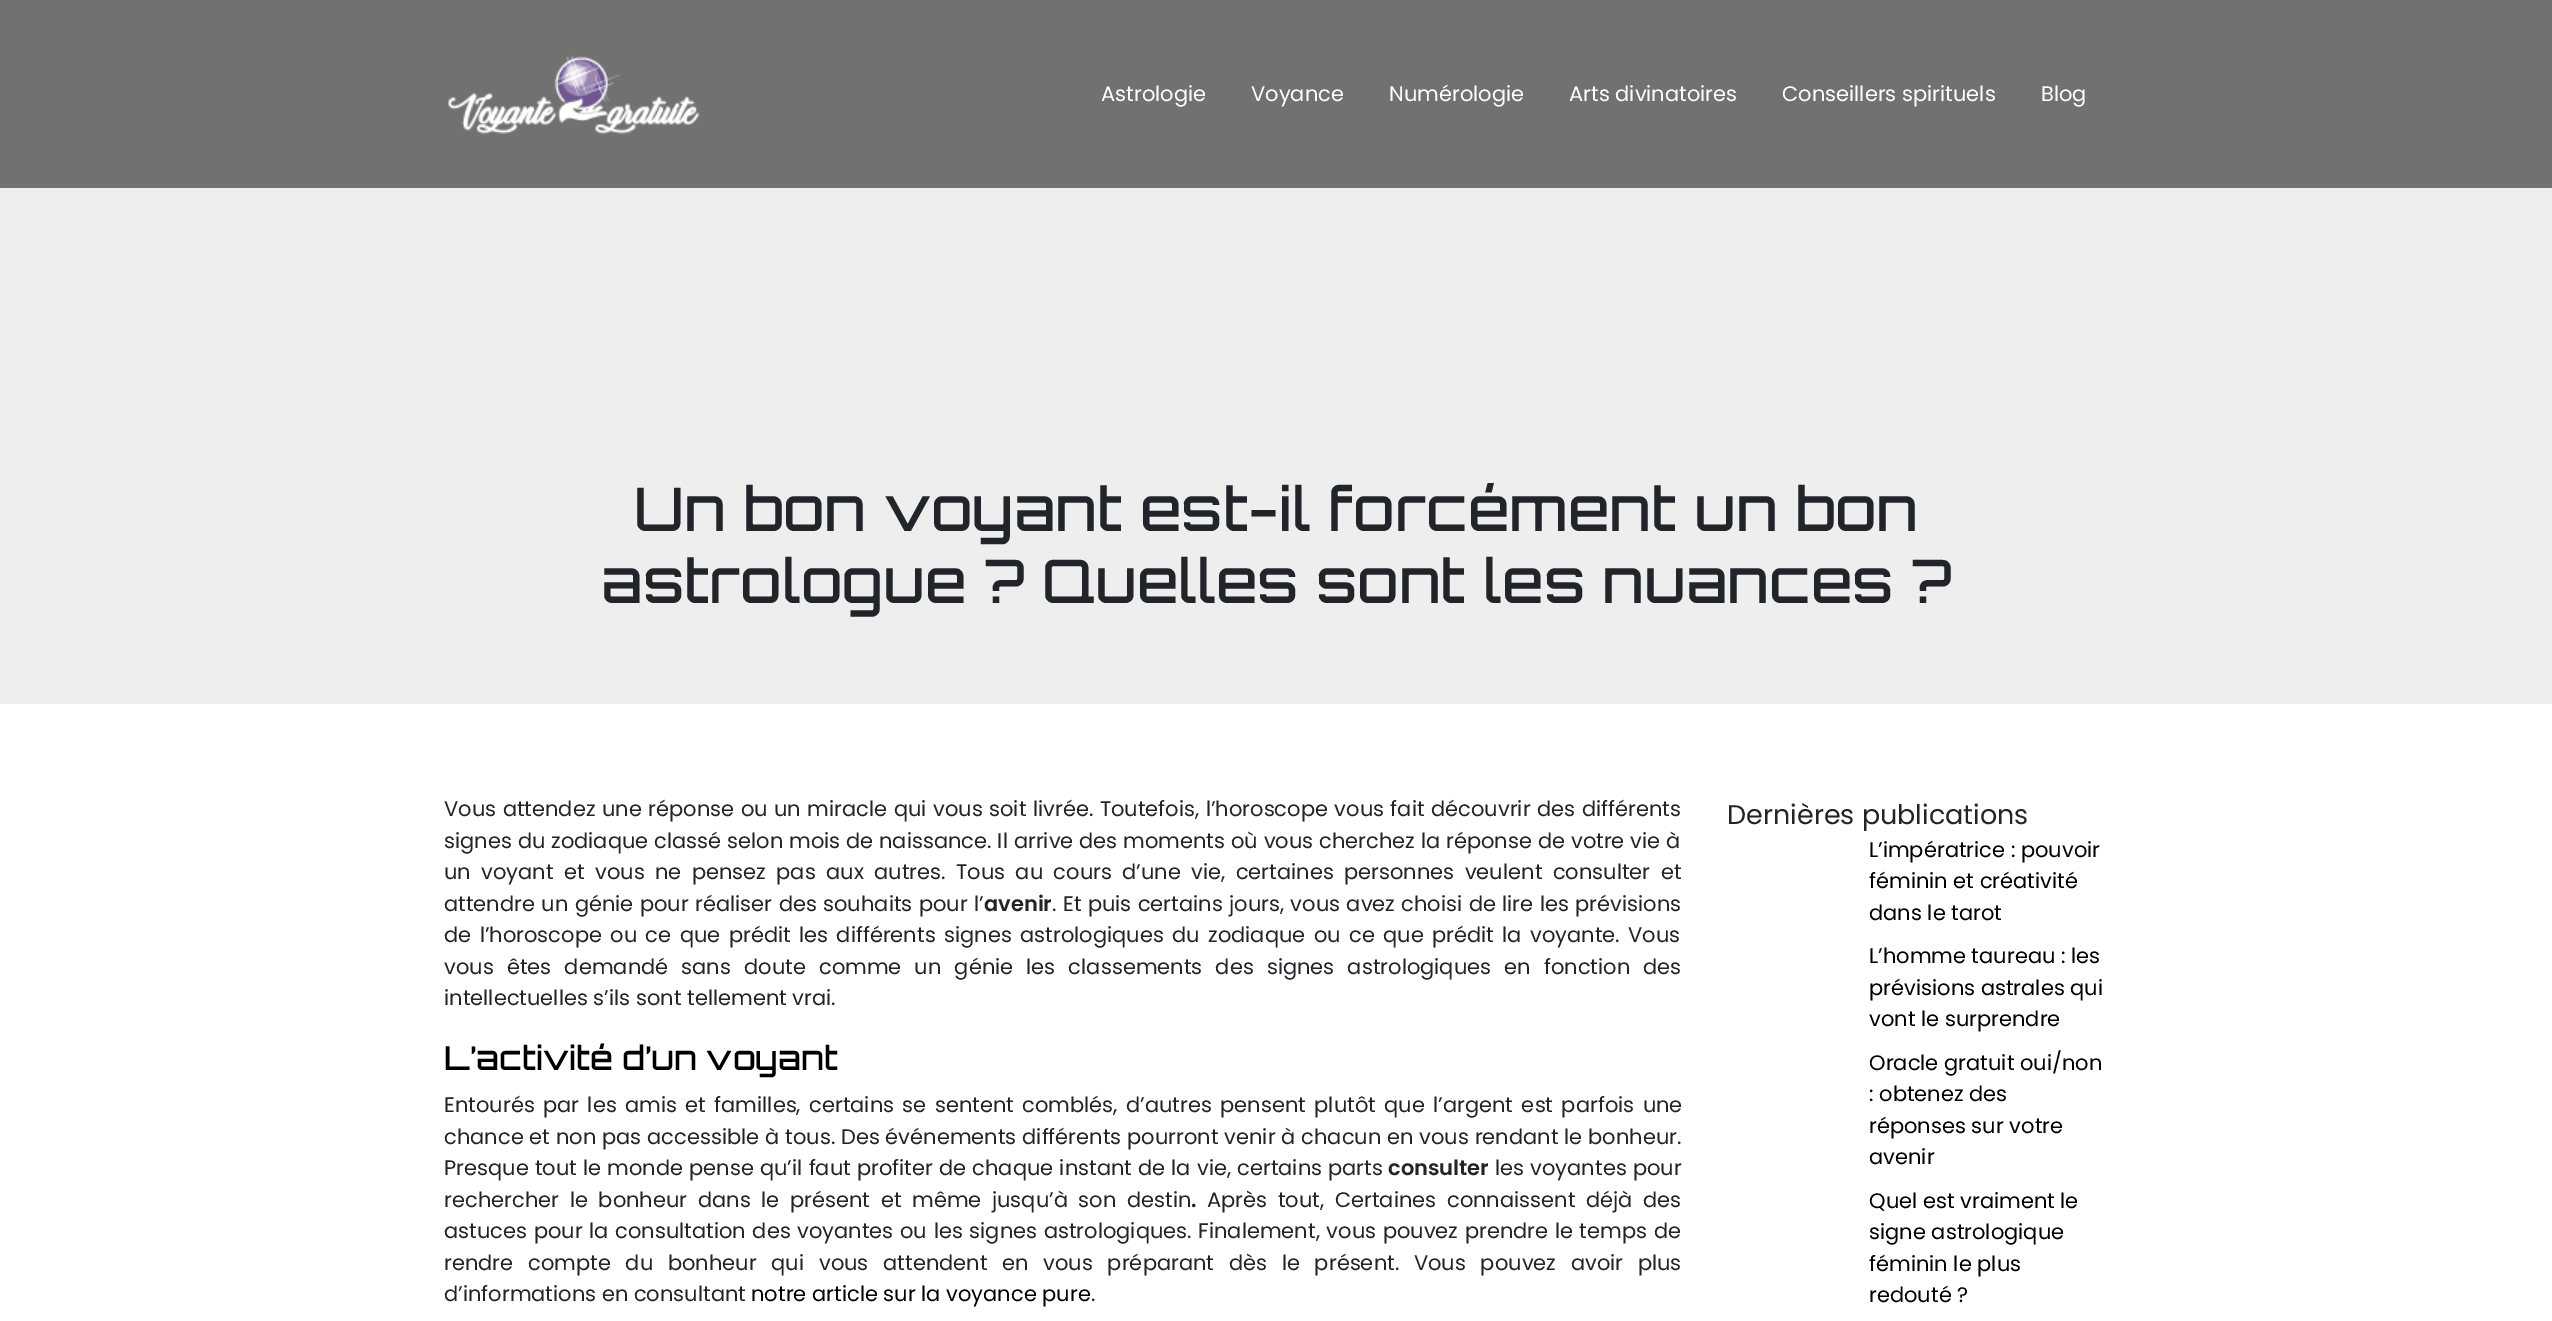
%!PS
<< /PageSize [2552 1321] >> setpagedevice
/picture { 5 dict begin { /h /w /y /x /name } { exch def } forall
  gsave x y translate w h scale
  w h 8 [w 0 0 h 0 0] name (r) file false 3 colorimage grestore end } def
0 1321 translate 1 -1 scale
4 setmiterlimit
1 setgray
0 0 2552 1321 rectfill
0.443 setgray
0 0 2552 188 rectfill
(img1.rgb) 448 55 252 79 picture
/Poppins-Regular [21 0 0 -21 0 0] selectfont
1 setgray
1101 101 moveto (Astrologie) show
1251 101 moveto (Voyance) show
1389 101 moveto (Numérologie) show
1569 101 moveto (Arts divinatoires) show
1782 101 moveto (Conseillers spirituels) show
2041 101 moveto (Blog) show
0.933 setgray
0 188 2552 516 rectfill
/Orbitron-Medium [60 0 0 -60 0 0] selectfont
0.129 0.145 0.161 setrgbcolor
634 531 moveto (Un bon voyant est-il forcément un bon) show
601 603 moveto (astrologue ? Quelles sont les nuances ?) show
/Poppins-Regular [21 0 0 -21 0 0] selectfont
444 816 moveto 0.9 0 32 (Vous attendez une réponse ou un miracle qui vous soit livrée. Toutefois, l’horoscope vous fait découvrir des différents) widthshow
444 848 moveto 0.25 0 32 (signes du zodiaque classé selon mois de naissance. Il arrive des moments où vous cherchez la réponse de votre vie à) widthshow
444 879 moveto 4.75 0 32 (un voyant et vous ne pensez pas aux autres. Tous au cours d’une vie, certaines personnes veulent consulter et) widthshow
444 911 moveto 0.75 0 32 (attendre un génie pour réaliser des souhaits pour l’) widthshow
/Poppins-SemiBold [21 0 0 -21 0 0] selectfont
984 911 moveto (avenir) show
/Poppins-Regular [21 0 0 -21 0 0] selectfont
1052 911 moveto 0.75 0 32 (. Et puis certains jours, vous avez choisi de lire les prévisions) widthshow
444 942 moveto 2.75 0 32 (de l’horoscope ou ce que prédit les différents signes astrologiques du zodiaque ou ce que prédit la voyante. Vous) widthshow
444 974 moveto 7.5 0 32 (vous êtes demandé sans doute comme un génie les classements des signes astrologiques en fonction des) widthshow
444 1005 moveto (intellectuelles s’ils sont tellement vrai.) show
/Orbitron-Medium [33 0 0 -33 0 0] selectfont
0 setgray
444 1070 moveto (L’activité d’un voyant) show
/Poppins-Regular [21 0 0 -21 0 0] selectfont
0.129 0.145 0.161 setrgbcolor
444 1112 moveto 2.75 0 32 (Entourés par les amis et familles, certains se sentent comblés, d’autres pensent plutôt que l’argent est parfois une) widthshow
444 1144 moveto 0.2 0 32 (chance et non pas accessible à tous. Des événements différents pourront venir à chacun en vous rendant le bonheur.) widthshow
444 1175 moveto 0.5 0 32 (Presque tout le monde pense qu’il faut profiter de chaque instant de la vie, certains parts) widthshow
/Poppins-SemiBold [21 0 0 -21 0 0] selectfont
1388 1175 moveto (consulter) show
/Poppins-Regular [21 0 0 -21 0 0] selectfont
1495 1175 moveto 0.5 0 32 (les voyantes pour) widthshow
444 1207 moveto 5 0 32 (rechercher le bonheur dans le présent et même jusqu’à son destin) widthshow
/Poppins-SemiBold [21 0 0 -21 0 0] selectfont
1191 1207 moveto (.) show
/Poppins-Regular [21 0 0 -21 0 0] selectfont
1207 1207 moveto 5 0 32 (Après tout, Certaines connaissent déjà des) widthshow
444 1238 moveto 1 0 32 (astuces pour la consultation des voyantes ou les signes astrologiques. Finalement, vous pouvez prendre le temps de) widthshow
444 1270 moveto 9.1 0 32 (rendre compte du bonheur qui vous attendent en vous préparant dès le présent. Vous pouvez avoir plus) widthshow
444 1301 moveto (d’informations en consultant) show
0 setgray
751 1301 moveto (notre article sur la voyance pure) show
0.129 0.145 0.161 setrgbcolor
1091 1301 moveto (.) show
/Poppins-Regular [27 0 0 -27 0 0] selectfont
1727 824 moveto (Dernières publications) show
/Poppins-Regular [21 0 0 -21 0 0] selectfont
0 setgray
1869 857 moveto (L’impératrice : pouvoir) show
1869 888 moveto (féminin et créativité) show
1869 920 moveto (dans le tarot) show
1869 963 moveto (L’homme taureau : les) show
1869 995 moveto (prévisions astrales qui) show
1869 1026 moveto (vont le surprendre) show
1869 1070 moveto (Oracle gratuit oui/non) show
1869 1101 moveto (: obtenez des) show
1869 1133 moveto (réponses sur votre) show
1869 1164 moveto (avenir) show
1869 1208 moveto (Quel est vraiment le) show
1869 1239 moveto (signe astrologique) show
1869 1271 moveto (féminin le plus) show
1869 1302 moveto (redouté ?) show
showpage
